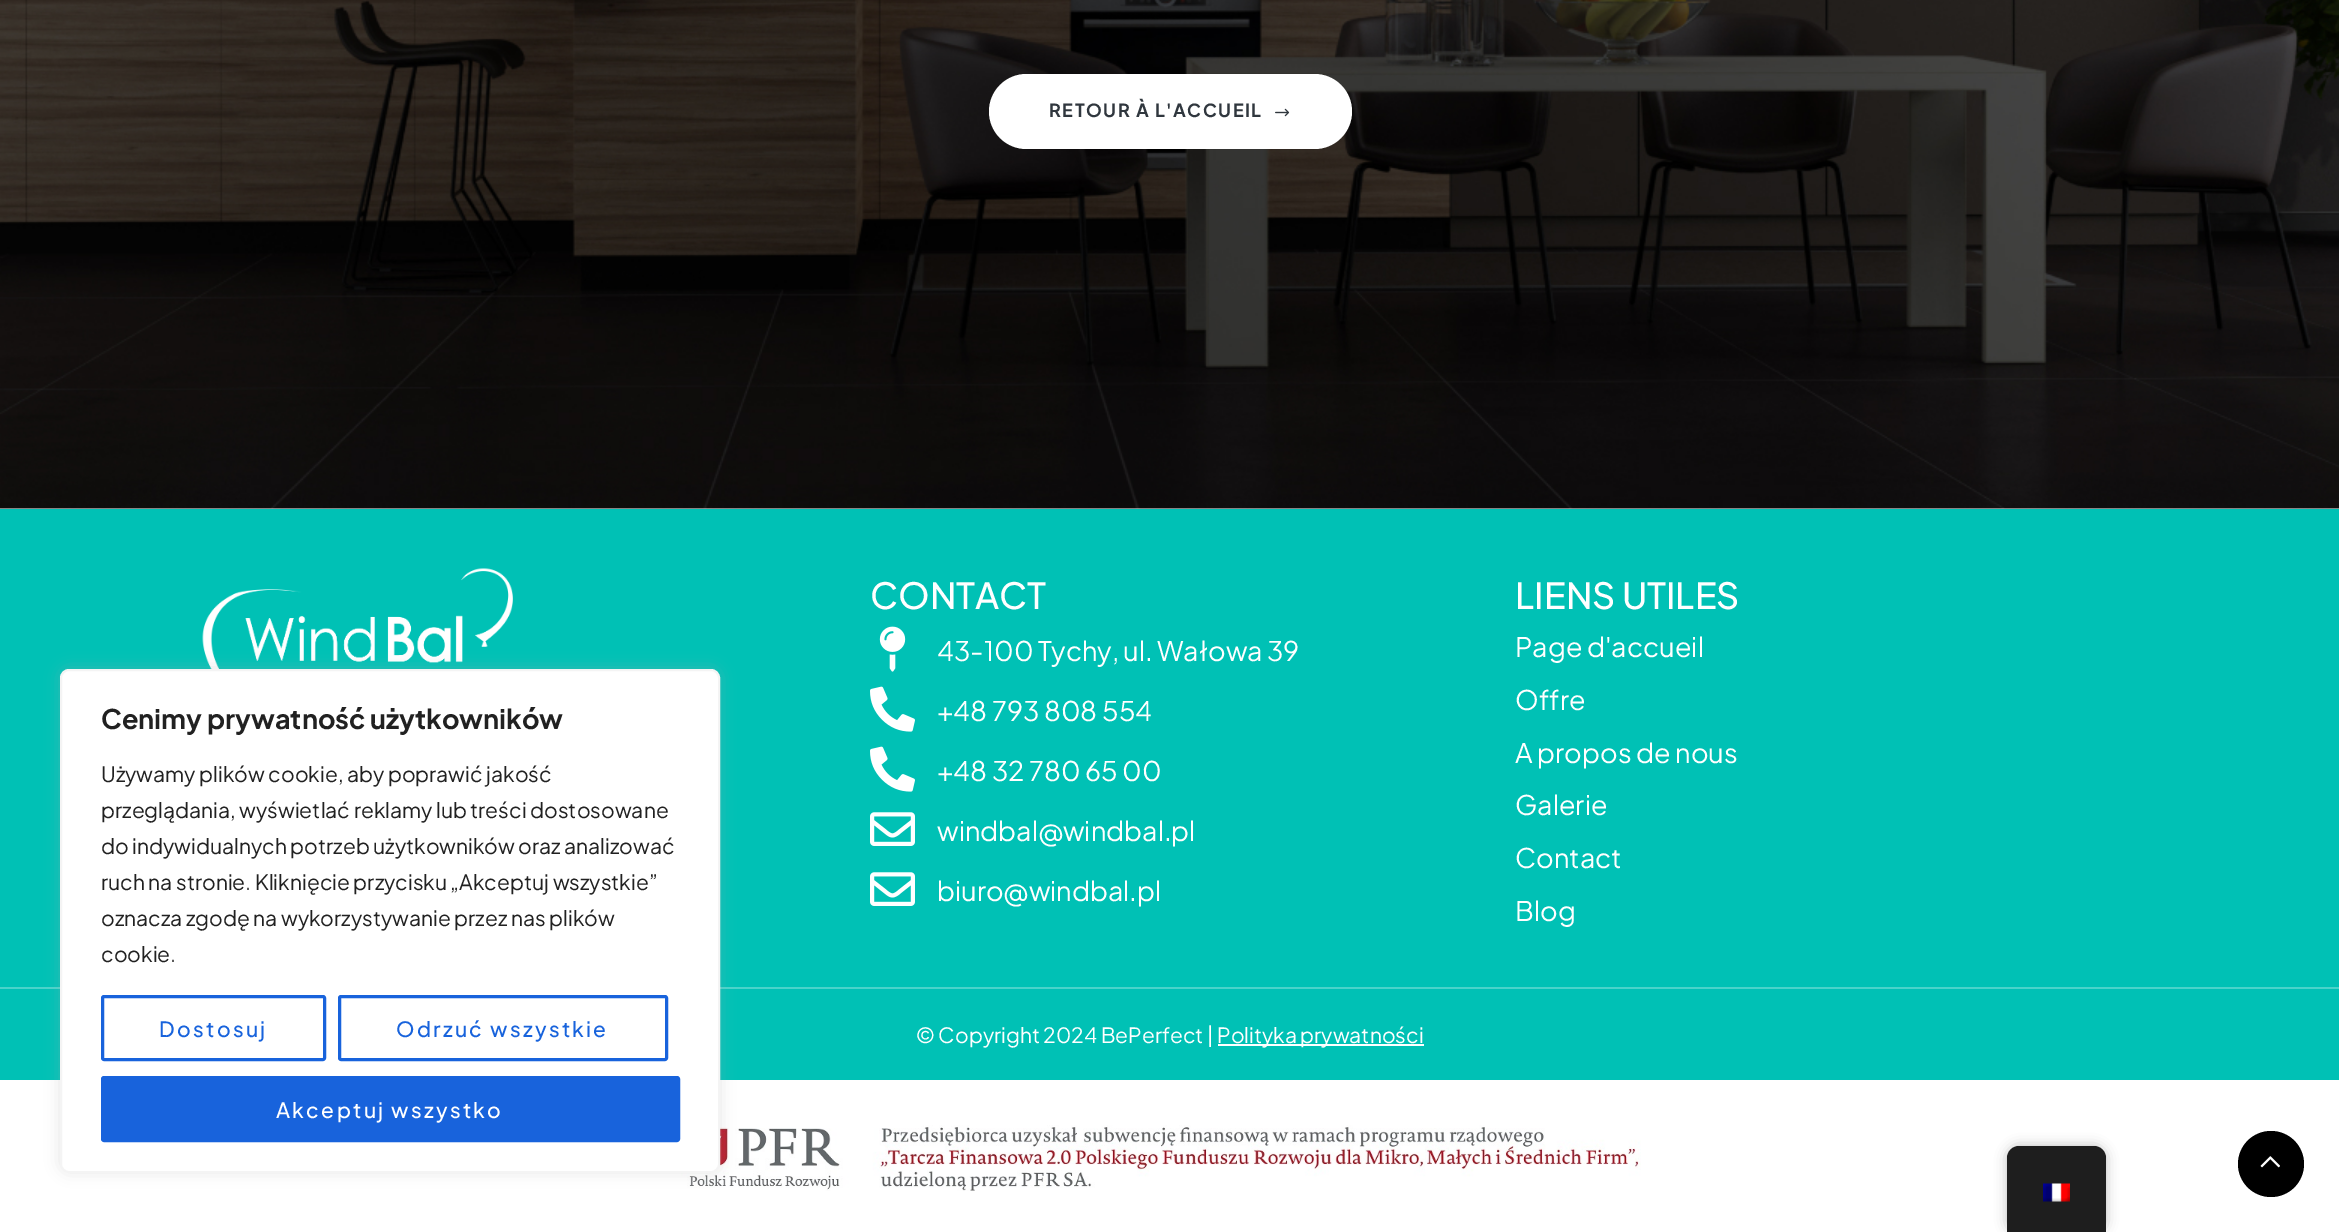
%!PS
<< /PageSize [2339 1232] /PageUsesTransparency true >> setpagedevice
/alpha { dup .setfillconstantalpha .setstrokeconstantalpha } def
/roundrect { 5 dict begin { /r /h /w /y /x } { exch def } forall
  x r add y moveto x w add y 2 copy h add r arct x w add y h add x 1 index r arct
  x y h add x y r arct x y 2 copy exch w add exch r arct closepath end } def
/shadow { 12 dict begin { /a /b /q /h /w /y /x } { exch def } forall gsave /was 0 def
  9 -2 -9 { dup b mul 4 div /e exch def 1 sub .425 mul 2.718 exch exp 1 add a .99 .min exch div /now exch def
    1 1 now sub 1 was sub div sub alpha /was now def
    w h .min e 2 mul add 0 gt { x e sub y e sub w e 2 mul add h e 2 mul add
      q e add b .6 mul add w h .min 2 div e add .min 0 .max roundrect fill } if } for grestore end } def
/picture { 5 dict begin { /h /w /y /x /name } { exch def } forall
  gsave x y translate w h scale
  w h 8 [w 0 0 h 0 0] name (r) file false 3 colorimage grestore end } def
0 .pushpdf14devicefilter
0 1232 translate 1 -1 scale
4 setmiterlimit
1 setgray
0 0 2339 1232 rectfill
0 0.757 0.71 setrgbcolor
0 509 2339 571 rectfill
(img3.rgb) 202 568 311 101 picture
0.29 0.827 0.792 setrgbcolor
0 987 2339 2 rectfill
(img7.rgb) 681 1125 960 66 picture
0.675 0.671 0.671 setrgbcolor
60 668 660 504 9 7.5 0.3 shadow
1 setgray
61 670 658 502 8 roundrect gsave fill grestore
0.957 setgray
2 setlinewidth
stroke
/PlusJakartaSans-Bold [27 0 0 -27 0 0] selectfont
0.129 setgray
101 729 moveto (Cenimy prywatność użytkowników) show
/PlusJakartaSans-Regular [21 0 0 -21 0 0] selectfont
101 782 moveto (Używamy plików cookie, aby poprawić jakość) show
101 818 moveto (przeglądania, wyświetlać reklamy lub treści dostosowane) show
101 854 moveto (do indywidualnych potrzeb użytkowników oraz analizować) show
101 890 moveto (ruch na stronie. Kliknięcie przycisku „Akceptuj wszystkie”) show
101 926 moveto (oznacza zgodę na wykorzystywanie przez nas plików) show
101 962 moveto (cookie.) show
0.094 0.388 0.863 setrgbcolor
3 setlinewidth
102.5 996.5 222 63 1.5 roundrect stroke
/PlusJakartaSans-Medium [21 0 0 -21 0 0] selectfont
159 1037 moveto 2.3 0 (Dostosuj) ashow
339.5 996.5 327 63 1.5 roundrect stroke
396 1037 moveto 2.3 0 (Odrzuć wszystkie) ashow
102.5 1077.5 576 63 1.5 roundrect gsave fill grestore
stroke
1 setgray
276 1118 moveto 2.3 0 (Akceptuj wszystko) ashow
(img1.rgb) 0 0 2339 509 picture
989 74 363 75 37.5 roundrect fill
/PlusJakartaSans-Bold [18 0 0 -18 0 0] selectfont
0.188 0.216 0.243 setrgbcolor
1049 117 moveto 1.5 0 (RETOUR À L'ACCUEIL) ashow
(img2.rgb) 1275 108 15 9 picture
/PlusJakartaSans-Medium [36 0 0 -36 0 0] selectfont
1 setgray
870 609 moveto (CONTACT) show
(img4.rgb) 879 626 27 46 picture
/PlusJakartaSans-Regular [27 0 0 -27 0 0] selectfont
937 661 moveto -0.5 0 32 (43-100 Tychy, ul. Wałowa 39) widthshow
(img5.rgb) 870 686 45 46 picture
937 721 moveto (+48 793 808 554) show
(img5.rgb) 870 746 45 46 picture
937 781 moveto (+48 32 780 65 00) show
(img6.rgb) 870 812 45 34 picture
937 841 moveto (windbal@windbal.pl) show
(img6.rgb) 870 872 45 34 picture
937 901 moveto (biuro@windbal.pl) show
/PlusJakartaSans-Medium [36 0 0 -36 0 0] selectfont
1515 609 moveto (LIENS UTILES) show
/PlusJakartaSans-Regular [27 0 0 -27 0 0] selectfont
1515 657 moveto (Page d'accueil) show
1515 710 moveto (Offre) show
1515 763 moveto (A propos de nous) show
1515 815 moveto (Galerie) show
1515 868 moveto (Contact) show
1515 921 moveto (Blog) show
/PlusJakartaSans-Regular [21 0 0 -21 0 0] selectfont
916 1043 moveto (© Copyright 2024 BePerfect |) show
1218 1044 206 2 rectfill
1217 1043 moveto (Polityka prywatności) show
0 setgray
2007 1146 99 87 12 6 0.25 shadow
0.118 setgray
newpath 2019 1146 moveto 2094 1146 lineto 2100.5 1146 2106 1151.5 2106 1158 curveto 2106 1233 lineto 2007 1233 lineto 2007 1158 lineto 2007 1151.5 2012.5 1146 2019 1146 curveto closepath fill
(img8.rgb) 2043 1183 27 19 picture
0 setgray
newpath 2271 1164 33 0 360 arc closepath fill
(img9.rgb) 2260 1156 20 12 picture
.poppdf14devicefilter showpage
